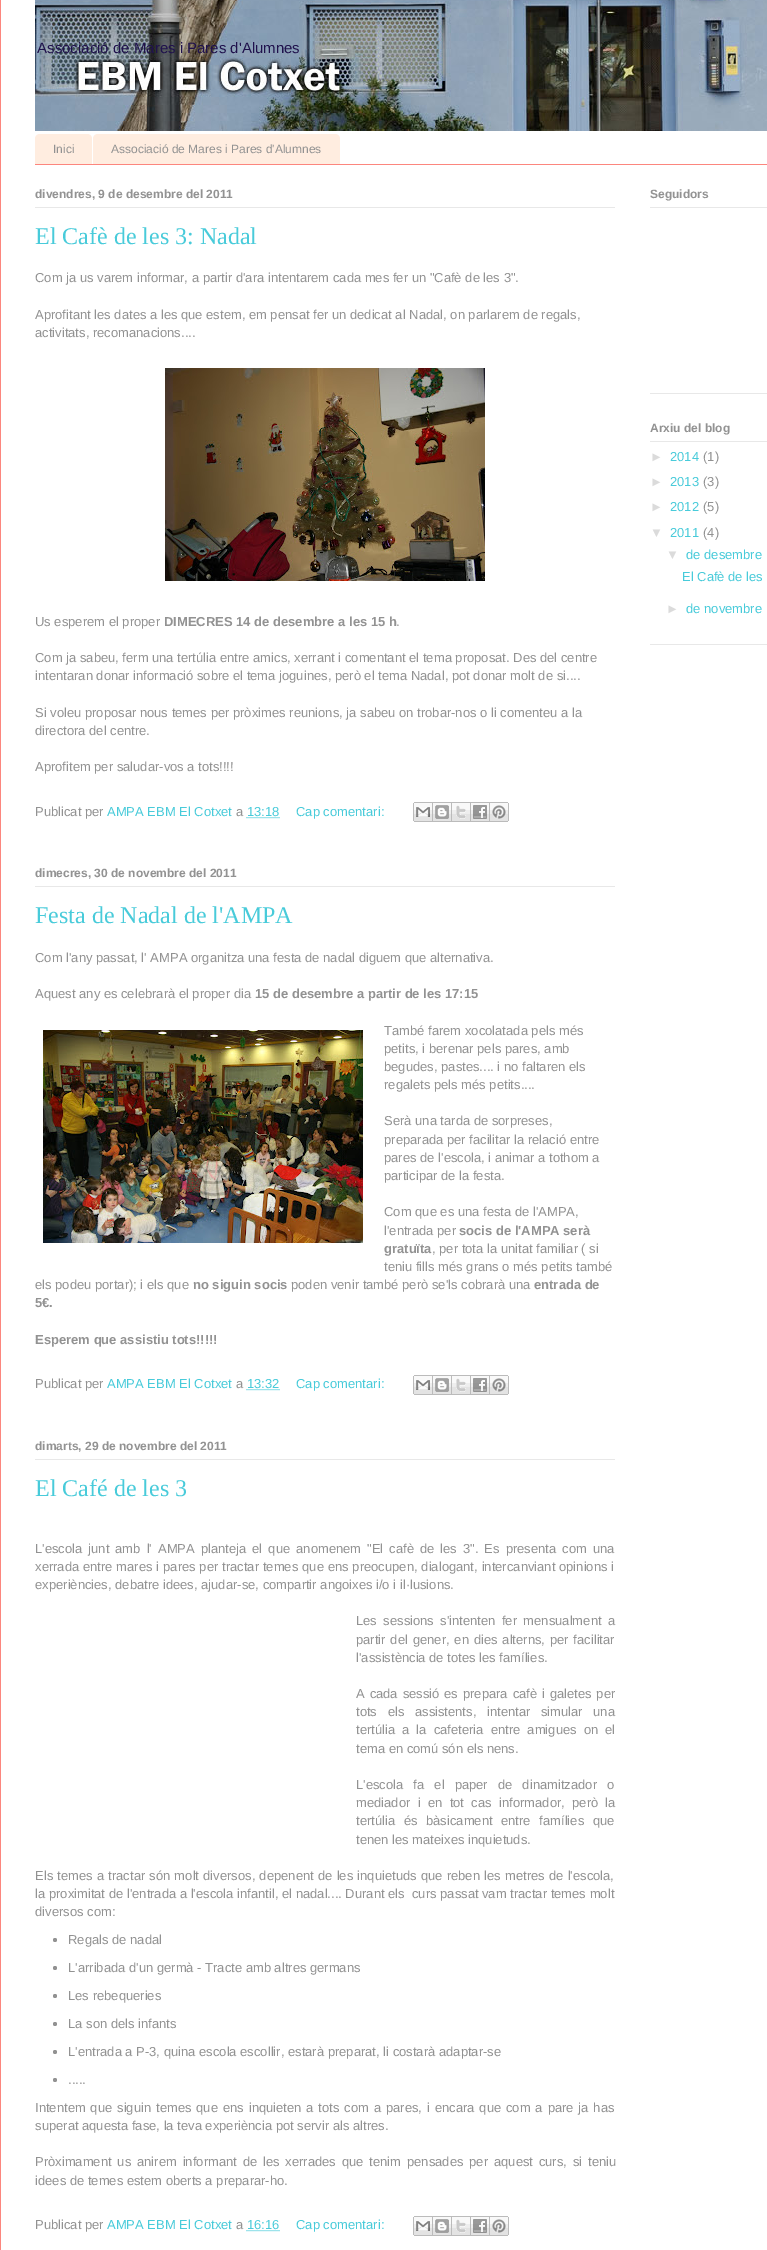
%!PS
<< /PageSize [767 2250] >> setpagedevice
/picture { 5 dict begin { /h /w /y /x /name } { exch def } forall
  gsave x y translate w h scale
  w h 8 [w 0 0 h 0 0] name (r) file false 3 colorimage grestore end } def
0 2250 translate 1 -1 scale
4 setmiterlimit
1 setgray
0 0 767 2250 rectfill
0.988 0.525 0.494 setrgbcolor
0 0 1 2250 rectfill
(img1.rgb) 35 0 732 131 picture
/LiberationSans-Regular [15 0 0 -15 0 0] selectfont
0.125 0.071 0.302 setrgbcolor
37 53 moveto (Associació de Mares i Pares d'Alumnes) show
0.988 0.525 0.494 setrgbcolor
35 164 732 1 rectfill
1 0.929 0.878 setrgbcolor
newpath 40 134 moveto 87 134 lineto 90 134 92 136 92 139 curveto 92 164 lineto 35 164 lineto 35 139 lineto 35 136 37 134 40 134 curveto closepath fill
/LiberationSans-Regular [12 0 0 -12 0 0] selectfont
0.573 setgray
53 153 moveto (Inici) show
1 0.929 0.878 setrgbcolor
newpath 98 134 moveto 335 134 lineto 338 134 340 136 340 139 curveto 340 164 lineto 93 164 lineto 93 139 lineto 93 136 95 134 98 134 curveto closepath fill
0.573 setgray
111 153 moveto (Associació de Mares i Pares d'Alumnes) show
0.91 setgray
35 207 580 1 rectfill
/LiberationSans-Bold [12 0 0 -12 0 0] selectfont
0.573 setgray
35 198 moveto (divendres, 9 de desembre del 2011) show
/LiberationSerif-Regular [24 0 0 -24 0 0] selectfont
0.282 0.796 0.855 setrgbcolor
35 244 moveto (El Cafè de les 3: Nadal) show
/LiberationSans-Regular [13 0 0 -13 0 0] selectfont
0.573 setgray
35 282 moveto (Com ja us varem informar, a partir d'ara intentarem cada mes fer un "Cafè de les 3".) show
35 319 moveto (Aprofitant les dates a les que estem, em pensat fer un dedicat al Nadal, on parlarem de regals,) show
35 337 moveto (activitats, recomanacions....) show
(img2.rgb) 165 368 320 213 picture
35 626 moveto (Us esperem el proper) show
/LiberationSans-Bold [13 0 0 -13 0 0] selectfont
164 626 moveto (DIMECRES 14 de desembre a les 15 h) show
/LiberationSans-Regular [13 0 0 -13 0 0] selectfont
396 626 moveto (.) show
35 662 moveto (Com ja sabeu, ferm una tertúlia entre amics, xerrant i comentant el tema proposat. Des del centre) show
35 680 moveto (intentaran donar informació sobre el tema joguines, però el tema Nadal, pot donar molt de si....) show
35 717 moveto (Si voleu proposar nous temes per pròximes reunions, ja sabeu on trobar-nos o li comenteu a la) show
35 735 moveto (directora del centre.) show
35 771 moveto (Aprofitem per saludar-vos a tots!!!!) show
35 816 moveto (Publicat per) show
0.282 0.796 0.855 setrgbcolor
107 816 moveto (AMPA EBM El Cotxet) show
0.573 setgray
236 816 moveto (a) show
0.282 0.796 0.855 setrgbcolor
[1 1] 0 setdash
newpath 246.5 817.5 moveto 279.5 817.5 lineto stroke
247 816 moveto (13:18) show
296 816 moveto (Cap comentari:) show
(img3.rgb) 413 802 20 20 picture
(img4.rgb) 433 802 19 20 picture
(img5.rgb) 452 802 19 20 picture
(img6.rgb) 471 802 19 20 picture
(img7.rgb) 490 802 19 20 picture
0.91 setgray
35 886 580 1 rectfill
/LiberationSans-Bold [12 0 0 -12 0 0] selectfont
0.573 setgray
35 877 moveto (dimecres, 30 de novembre del 2011) show
/LiberationSerif-Regular [24 0 0 -24 0 0] selectfont
0.282 0.796 0.855 setrgbcolor
35 923 moveto (Festa de Nadal de l'AMPA) show
/LiberationSans-Regular [13 0 0 -13 0 0] selectfont
0.573 setgray
35 962 moveto (Com l'any passat, l' AMPA organitza una festa de nadal diguem que alternativa.) show
35 998 moveto (Aquest any es celebrarà el proper dia) show
/LiberationSans-Bold [13 0 0 -13 0 0] selectfont
255 998 moveto (15 de desembre a partir de les 17:15) show
(img8.rgb) 43 1030 320 213 picture
/LiberationSans-Regular [13 0 0 -13 0 0] selectfont
384 1035 moveto (També farem xocolatada pels més) show
384 1053 moveto (petits, i berenar pels pares, amb) show
384 1071 moveto (begudes, pastes.... i no faltaren els) show
384 1089 moveto (regalets pels més petits....) show
384 1125 moveto (Serà una tarda de sorpreses,) show
384 1144 moveto (preparada per facilitar la relació entre) show
384 1162 moveto (pares de l'escola, i animar a tothom a) show
384 1180 moveto (participar de la festa.) show
384 1216 moveto (Com que es una festa de l'AMPA,) show
384 1235 moveto (l'entrada per) show
/LiberationSans-Bold [13 0 0 -13 0 0] selectfont
459 1235 moveto (socis de l'AMPA serà) show
384 1253 moveto (gratuïta) show
/LiberationSans-Regular [13 0 0 -13 0 0] selectfont
432 1253 moveto (, per tota la unitat familiar \( si) show
384 1271 moveto (teniu fills més grans o més petits també) show
35 1289 moveto (els podeu portar\); i els que) show
/LiberationSans-Bold [13 0 0 -13 0 0] selectfont
193 1289 moveto (no siguin socis) show
/LiberationSans-Regular [13 0 0 -13 0 0] selectfont
291 1289 moveto (poden venir també però se'ls cobrarà una) show
/LiberationSans-Bold [13 0 0 -13 0 0] selectfont
534 1289 moveto (entrada de) show
35 1307 moveto (5€.) show
35 1344 moveto (Esperem que assistiu tots!!!!!) show
/LiberationSans-Regular [13 0 0 -13 0 0] selectfont
35 1388 moveto (Publicat per) show
0.282 0.796 0.855 setrgbcolor
107 1388 moveto (AMPA EBM El Cotxet) show
0.573 setgray
236 1388 moveto (a) show
0.282 0.796 0.855 setrgbcolor
newpath 246.5 1389.5 moveto 279.5 1389.5 lineto stroke
247 1388 moveto (13:32) show
296 1388 moveto (Cap comentari:) show
(img3.rgb) 413 1375 20 20 picture
(img4.rgb) 433 1375 19 20 picture
(img5.rgb) 452 1375 19 20 picture
(img6.rgb) 471 1375 19 20 picture
(img7.rgb) 490 1375 19 20 picture
0.91 setgray
35 1459 580 1 rectfill
/LiberationSans-Bold [12 0 0 -12 0 0] selectfont
0.573 setgray
35 1450 moveto (dimarts, 29 de novembre del 2011) show
/LiberationSerif-Regular [24 0 0 -24 0 0] selectfont
0.282 0.796 0.855 setrgbcolor
35 1496 moveto (El Café de les 3) show
/LiberationSans-Regular [13 0 0 -13 0 0] selectfont
0.573 setgray
35 1553 moveto 2.4 0 32 (L'escola junt amb l' AMPA planteja el que anomenem "El cafè de les 3". Es presenta com una) widthshow
35 1571 moveto 0.25 0 32 (xerrada entre mares i pares per tractar temes que ens preocupen, dialogant, intercanviant opinions i) widthshow
35 1589 moveto (experiències, debatre idees, ajudar-se, compartir angoixes i/o i il·lusions.) show
356 1625 moveto 2.75 0 32 (Les sessions s'intenten fer mensualment a) widthshow
356 1644 moveto 1.25 0 32 (partir del gener, en dies alterns, per facilitar) widthshow
356 1662 moveto (l'assistència de totes les famílies.) show
356 1698 moveto 1.25 0 32 (A cada sessió es prepara cafè i galetes per) widthshow
356 1716 moveto 7 0 32 (tots els assistents, intentar simular una) widthshow
356 1734 moveto 3.5 0 32 (tertúlia a la cafeteria entre amigues on el) widthshow
356 1753 moveto (tema en comú són els nens.) show
356 1789 moveto 6.5 0 32 (L'escola fa el paper de dinamitzador o) widthshow
356 1807 moveto 3.75 0 32 (mediador i en tot cas informador, però la) widthshow
356 1825 moveto 5 0 32 (tertúlia és bàsicament entre famílies que) widthshow
356 1844 moveto (tenen les mateixes inquietuds.) show
35 1880 moveto 0.6 0 32 (Els temes a tractar són molt diversos, depenent de les inquietuds que reben les metres de l'escola,) widthshow
35 1898 moveto (la proximitat de l'entrada a l'escola infantil, el nadal.... Durant els  curs passat vam tractar temes molt) show
35 1916 moveto (diversos com:) show
newpath 55 1940 2 0 360 arc closepath fill
68 1944 moveto (Regals de nadal) show
newpath 55 1968 2 0 360 arc closepath fill
68 1972 moveto (L'arribada d'un germà - Tracte amb altres germans) show
newpath 55 1996 2 0 360 arc closepath fill
68 2000 moveto (Les rebequeries) show
newpath 55 2024 2 0 360 arc closepath fill
68 2028 moveto (La son dels infants) show
newpath 55 2052 2 0 360 arc closepath fill
68 2056 moveto (L'entrada a P-3, quina escola escollir, estarà preparat, li costarà adaptar-se) show
newpath 55 2080 2 0 360 arc closepath fill
68 2084 moveto (.....) show
35 2112 moveto 1.3 0 32 (Intentem que siguin temes que ens inquieten a tots com a pares, i encara que com a pare ja has) widthshow
35 2130 moveto (superat aquesta fase, la teva experiència pot servir als altres.) show
35 2166 moveto 2.25 0 32 (Pròximament us anirem informant de les xerrades que tenim pensades per aquest curs, si teniu) widthshow
35 2185 moveto (idees de temes estem oberts a preparar-ho.) show
35 2229 moveto (Publicat per) show
0.282 0.796 0.855 setrgbcolor
107 2229 moveto (AMPA EBM El Cotxet) show
0.573 setgray
236 2229 moveto (a) show
0.282 0.796 0.855 setrgbcolor
newpath 246.5 2230.5 moveto 279.5 2230.5 lineto stroke
247 2229 moveto (16:16) show
296 2229 moveto (Cap comentari:) show
(img3.rgb) 413 2216 20 20 picture
(img4.rgb) 433 2216 19 20 picture
(img5.rgb) 452 2216 19 20 picture
(img6.rgb) 471 2216 19 20 picture
(img7.rgb) 490 2216 19 20 picture
0.91 setgray
650 393 117 1 rectfill
650 207 117 1 rectfill
/LiberationSans-Bold [12 0 0 -12 0 0] selectfont
0.573 setgray
650 198 moveto (Seguidors) show
0.91 setgray
650 644 117 1 rectfill
650 441 117 1 rectfill
0.573 setgray
650 432 moveto (Arxiu del blog) show
/LiberationSans-Regular [13 0 0 -13 0 0] selectfont
0.859 setgray
650 461 moveto (►) show
0.282 0.796 0.855 setrgbcolor
670 461 moveto (2014) show
0.573 setgray
703 461 moveto (\(1\)) show
0.859 setgray
650 486 moveto (►) show
0.282 0.796 0.855 setrgbcolor
670 486 moveto (2013) show
0.573 setgray
703 486 moveto (\(3\)) show
0.859 setgray
650 511 moveto (►) show
0.282 0.796 0.855 setrgbcolor
670 511 moveto (2012) show
0.573 setgray
703 511 moveto (\(5\)) show
0.859 setgray
650 537 moveto (▼) show
0.282 0.796 0.855 setrgbcolor
670 537 moveto (2011) show
0.573 setgray
703 537 moveto (\(4\)) show
0.859 setgray
666 559 moveto (▼) show
0.282 0.796 0.855 setrgbcolor
686 559 moveto (de desembre) show
682 581 moveto (El Cafè de les) show
0.859 setgray
666 613 moveto (►) show
0.282 0.796 0.855 setrgbcolor
686 613 moveto (de novembre) show
showpage
